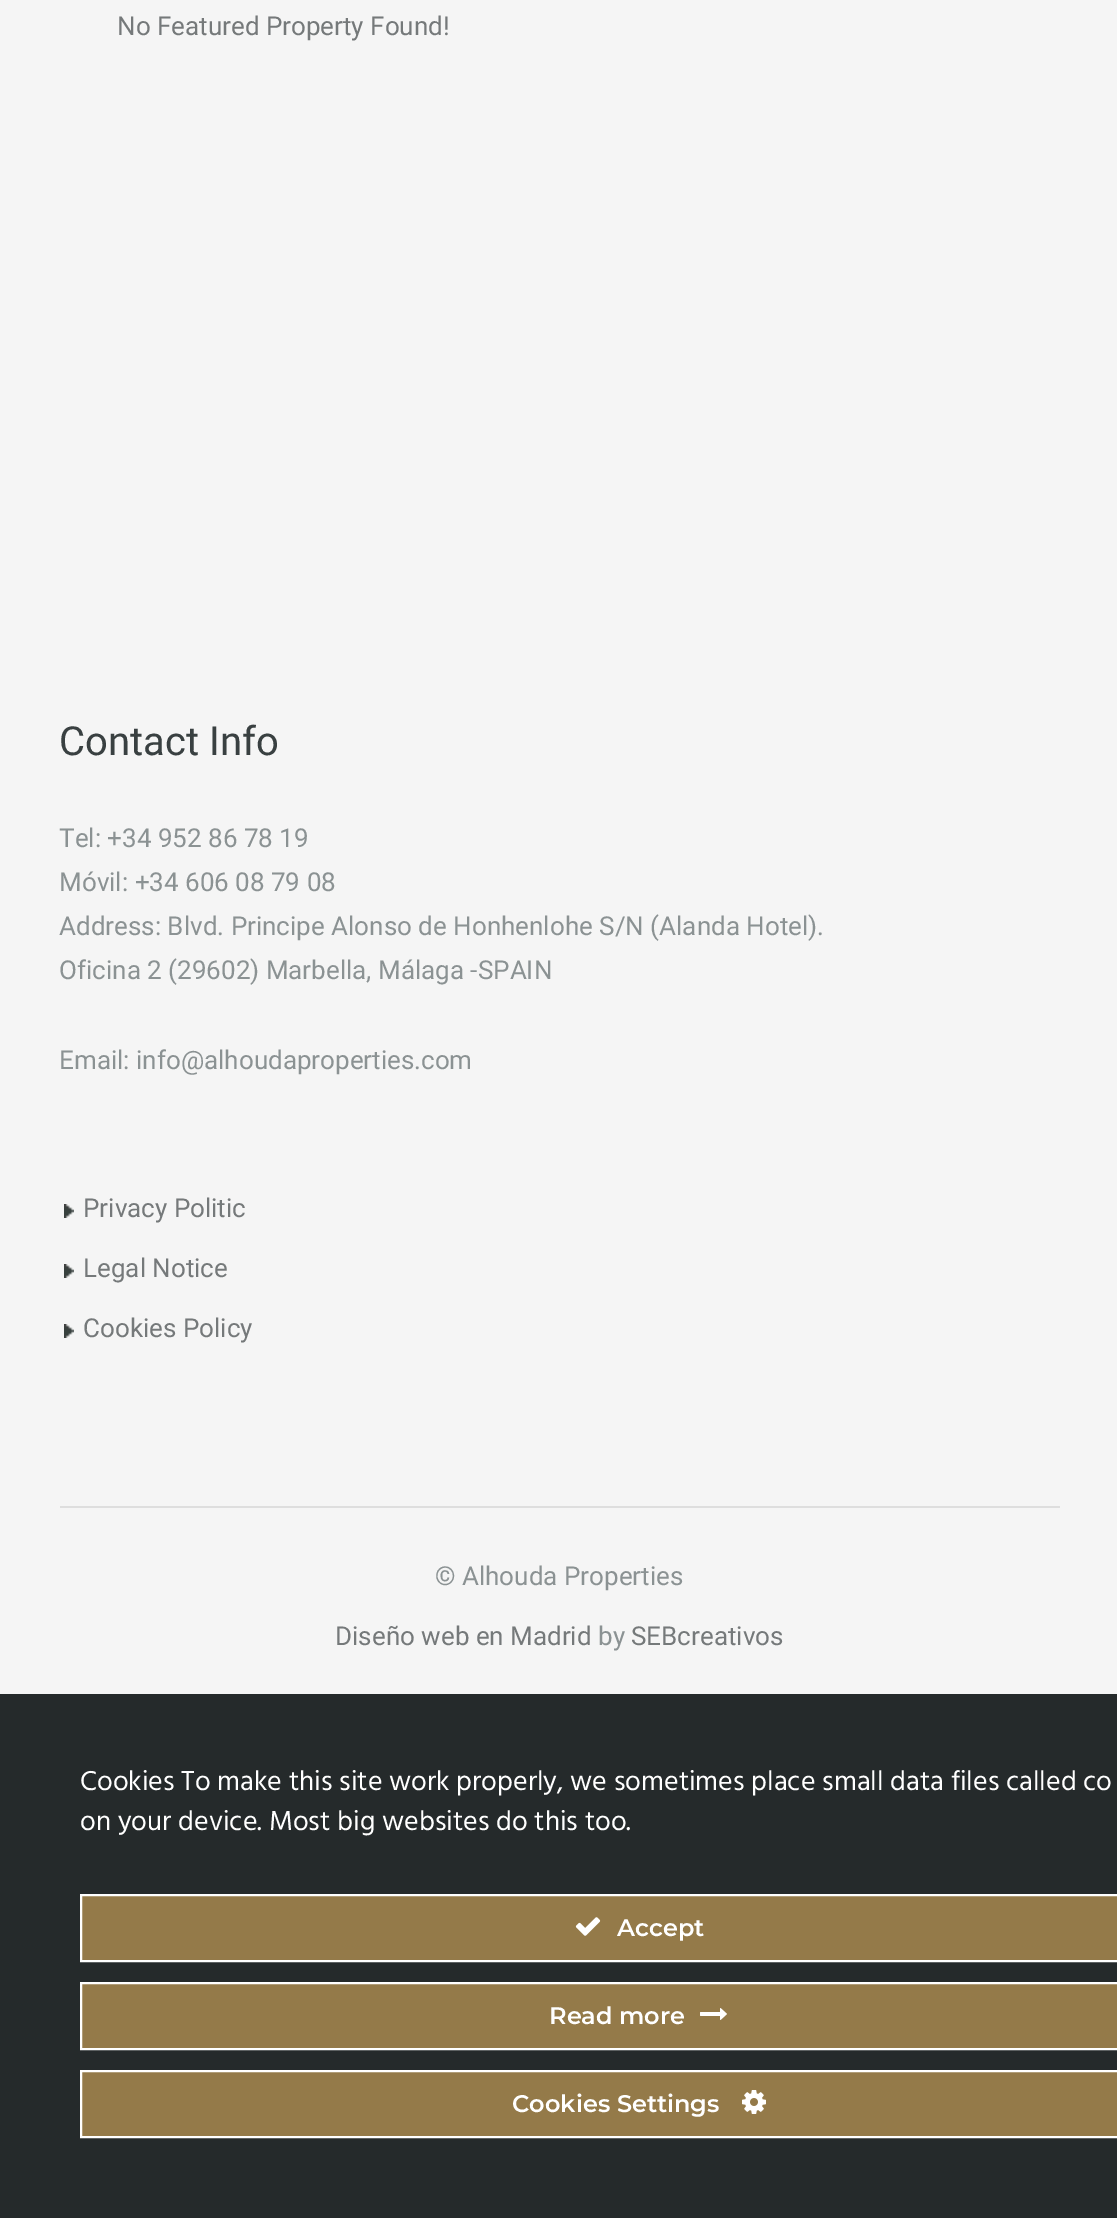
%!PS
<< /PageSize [1117 2218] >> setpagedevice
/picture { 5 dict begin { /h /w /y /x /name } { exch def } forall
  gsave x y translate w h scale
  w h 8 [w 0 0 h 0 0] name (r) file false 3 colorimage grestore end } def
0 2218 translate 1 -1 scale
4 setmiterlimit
0.961 setgray
0 0 1117 2218 rectfill
/Roboto-Regular [26 0 0 -26 0 0] selectfont
0.459 0.475 0.478 setrgbcolor
117 35 moveto (No Featured Property Found!) show
/Roboto-Regular [40 0 0 -40 0 0] selectfont
0.224 0.251 0.255 setrgbcolor
59 755 moveto (Contact Info) show
/Roboto-Regular [26 0 0 -26 0 0] selectfont
0.545 0.573 0.576 setrgbcolor
59 847 moveto (Tel: +34 952 86 78 19) show
59 891 moveto (Móvil: +34 606 08 79 08) show
59 935 moveto (Address: Blvd. Principe Alonso de Honhenlohe S/N \(Alanda Hotel\).) show
59 979 moveto (Oficina 2 \(29602\) Marbella, Málaga -SPAIN) show
59 1069 moveto (Email: info@alhoudaproperties.com) show
(img1.rgb) 64 1204 10 14 picture
0.459 0.475 0.478 setrgbcolor
83 1217 moveto (Privacy Politic) show
(img1.rgb) 64 1264 10 14 picture
83 1277 moveto (Legal Notice) show
(img1.rgb) 64 1324 10 14 picture
83 1337 moveto (Cookies Policy) show
0.871 setgray
60 1506 1000 2 rectfill
0.545 0.573 0.576 setrgbcolor
435 1585 moveto (© Alhouda Properties) show
0.459 0.475 0.478 setrgbcolor
335 1645 moveto (Diseño web en Madrid) show
0.545 0.573 0.576 setrgbcolor
598 1645 moveto (by) show
0.459 0.475 0.478 setrgbcolor
631 1645 moveto (SEBcreativos) show
0.145 0.165 0.169 setrgbcolor
0 1694 1117 524 rectfill
/Hind-Regular [28 0 0 -28 0 0] selectfont
1 setgray
80 1790 moveto (Cookies To make this site work properly, we sometimes place small data files called co) show
80 1830 moveto (on your device. Most big websites do this too.) show
0.58 0.478 0.286 setrgbcolor
newpath 81 1895 moveto 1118 1895 lineto 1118 1961 lineto 81 1961 lineto closepath gsave fill grestore
1 setgray
2 setlinewidth
stroke
(img2.rgb) 575 1917 26 19 picture
/Montserrat-SemiBold [24 0 0 -24 0 0] selectfont
617 1936 moveto (Accept) show
0.58 0.478 0.286 setrgbcolor
newpath 81 1983 moveto 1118 1983 lineto 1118 2049 lineto 81 2049 lineto closepath gsave fill grestore
1 setgray
stroke
549 2024 moveto (Read more) show
(img3.rgb) 700 2008 27 12 picture
0.58 0.478 0.286 setrgbcolor
newpath 81 2071 moveto 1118 2071 lineto 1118 2137 lineto 81 2137 lineto closepath gsave fill grestore
1 setgray
stroke
512 2112 moveto (Cookies Settings) show
(img4.rgb) 742 2090 24 24 picture
showpage
